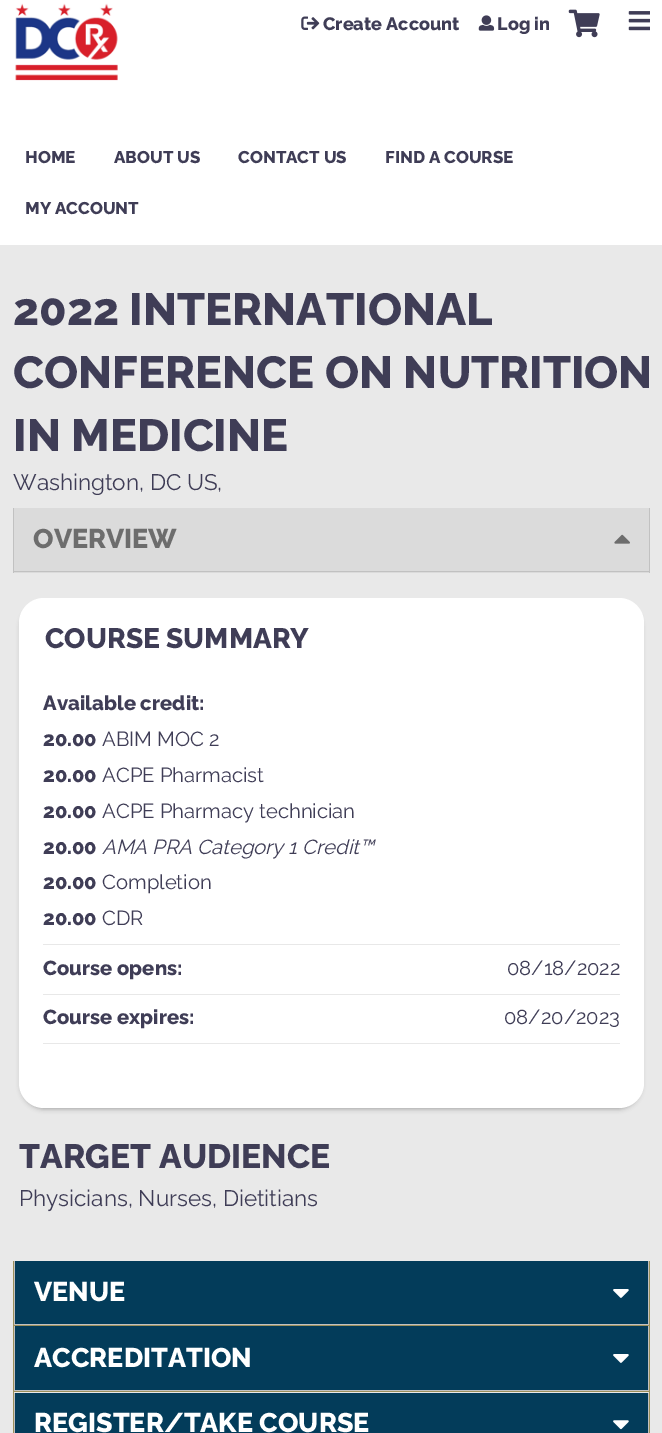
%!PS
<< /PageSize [662 1433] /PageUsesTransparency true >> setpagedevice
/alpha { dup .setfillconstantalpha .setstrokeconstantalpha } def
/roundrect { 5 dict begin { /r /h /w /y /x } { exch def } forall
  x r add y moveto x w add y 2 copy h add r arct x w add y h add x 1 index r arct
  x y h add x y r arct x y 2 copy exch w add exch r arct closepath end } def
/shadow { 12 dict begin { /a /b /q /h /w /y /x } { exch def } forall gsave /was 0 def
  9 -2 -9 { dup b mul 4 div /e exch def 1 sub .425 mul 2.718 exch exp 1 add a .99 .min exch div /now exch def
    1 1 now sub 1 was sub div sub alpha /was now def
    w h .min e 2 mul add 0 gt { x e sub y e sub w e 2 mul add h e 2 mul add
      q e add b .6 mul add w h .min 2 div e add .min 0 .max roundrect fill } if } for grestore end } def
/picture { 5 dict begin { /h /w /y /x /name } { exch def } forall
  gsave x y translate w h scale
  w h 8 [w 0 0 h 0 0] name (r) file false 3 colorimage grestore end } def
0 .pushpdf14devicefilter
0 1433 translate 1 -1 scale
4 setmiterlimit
0.914 setgray
0 0 662 1433 rectfill
1 setgray
0 0 662 245 rectfill
(img1.rgb) 15 3 103 78 picture
(img2.rgb) 301 16 19 14 picture
/Raleway-ExtraBold [18 0 0 -18 0 0] selectfont
0.247 0.239 0.337 setrgbcolor
323 30 moveto (Create Account) show
(img3.rgb) 478 15 17 16 picture
497 30 moveto (Log in) show
(img4.rgb) 568 9 32 29 picture
(img5.rgb) 628 11 22 20 picture
/Raleway-ExtraBold [17 0 0 -17 0 0] selectfont
25 163 moveto (HOME) show
114 163 moveto (ABOUT US) show
238 163 moveto (CONTACT US) show
385 163 moveto (FIND A COURSE) show
25 214 moveto (MY ACCOUNT) show
/Raleway-ExtraBold [45 0 0 -45 0 0] selectfont
13 325 moveto (2022 INTERNATIONAL) show
13 388 moveto (CONFERENCE ON NUTRITION) show
13 451 moveto (IN MEDICINE) show
/Raleway-Regular [22.5 0 0 -22.5 0 0] selectfont
13 490 moveto (Washington, DC US,) show
0.859 setgray
14 508 635 65 rectfill
0.757 setgray
649 508 1 65 rectfill
13 571 637 1 rectfill
13 508 1 65 rectfill
/Raleway-ExtraBold [27 0 0 -27 0 0] selectfont
0.427 setgray
33 548 moveto (OVERVIEW) show
(img6.rgb) 614 534 16 10 picture
0 setgray
21 604 620 505 23 2.5 0.3 shadow
1 setgray
19 598 625 510 25 roundrect fill
/Raleway-ExtraBold [28.1 0 0 -28.1 0 0] selectfont
0.247 0.239 0.337 setrgbcolor
45 648 moveto (COURSE SUMMARY) show
0.91 setgray
43 944 577 1 rectfill
/Raleway-ExtraBold [20.25 0 0 -20.25 0 0] selectfont
0.247 0.239 0.337 setrgbcolor
43 710 moveto (Available credit:) show
43 746 moveto (20.00) show
/Raleway-Regular [20.25 0 0 -20.25 0 0] selectfont
102 746 moveto (ABIM MOC 2) show
/Raleway-ExtraBold [20.25 0 0 -20.25 0 0] selectfont
43 782 moveto (20.00) show
/Raleway-Regular [20.25 0 0 -20.25 0 0] selectfont
102 782 moveto (ACPE Pharmacist) show
/Raleway-ExtraBold [20.25 0 0 -20.25 0 0] selectfont
43 818 moveto (20.00) show
/Raleway-Regular [20.25 0 0 -20.25 0 0] selectfont
102 818 moveto (ACPE Pharmacy technician) show
/Raleway-ExtraBold [20.25 0 0 -20.25 0 0] selectfont
43 854 moveto (20.00) show
/Raleway-Italic [20.25 0 0 -20.25 0 0] selectfont
102 854 moveto (AMA PRA Category 1 Credit™) show
/Raleway-ExtraBold [20.25 0 0 -20.25 0 0] selectfont
43 889 moveto (20.00) show
/Raleway-Regular [20.25 0 0 -20.25 0 0] selectfont
102 889 moveto (Completion) show
/Raleway-ExtraBold [20.25 0 0 -20.25 0 0] selectfont
43 925 moveto (20.00) show
/Raleway-Regular [20.25 0 0 -20.25 0 0] selectfont
102 925 moveto (CDR) show
0.91 setgray
43 994 577 1 rectfill
/Raleway-ExtraBold [20.25 0 0 -20.25 0 0] selectfont
0.247 0.239 0.337 setrgbcolor
43 975 moveto (Course opens:) show
/Raleway-Regular [20.25 0 0 -20.25 0 0] selectfont
507 975 moveto (08/18/2022) show
0.91 setgray
43 1043 577 1 rectfill
/Raleway-ExtraBold [20.25 0 0 -20.25 0 0] selectfont
0.247 0.239 0.337 setrgbcolor
43 1024 moveto (Course expires:) show
/Raleway-Regular [20.25 0 0 -20.25 0 0] selectfont
504 1024 moveto (08/20/2023) show
/Raleway-ExtraBold [33.75 0 0 -33.75 0 0] selectfont
19 1168 moveto (TARGET AUDIENCE) show
/Raleway-Regular [22.5 0 0 -22.5 0 0] selectfont
19 1206 moveto (Physicians, Nurses, Dietitians) show
0.612 0.565 0.361 setrgbcolor
649 1261 1 172 rectfill
13 1325 637 1 rectfill
13 1261 1 65 rectfill
0.012 0.235 0.353 setrgbcolor
15 1261 633 63 rectfill
0.757 setgray
648 1261 1 64 rectfill
14 1324 635 1 rectfill
14 1261 1 64 rectfill
/Raleway-ExtraBold [27 0 0 -27 0 0] selectfont
1 setgray
34 1301 moveto (VENUE) show
(img7.rgb) 613 1289 16 9 picture
0.612 0.565 0.361 setrgbcolor
13 1391 637 1 rectfill
13 1326 1 107 rectfill
0.012 0.235 0.353 setrgbcolor
15 1326 633 64 rectfill
0.757 setgray
648 1326 1 65 rectfill
14 1390 635 1 rectfill
14 1326 1 65 rectfill
1 setgray
34 1367 moveto (ACCREDITATION) show
(img7.rgb) 613 1354 16 9 picture
0.012 0.235 0.353 setrgbcolor
15 1393 633 40 rectfill
0.757 setgray
648 1393 1 40 rectfill
14 1393 1 40 rectfill
1 setgray
34 1432 moveto (REGISTER/TAKE COURSE) show
(img8.rgb) 613 1420 16 10 picture
.poppdf14devicefilter showpage
